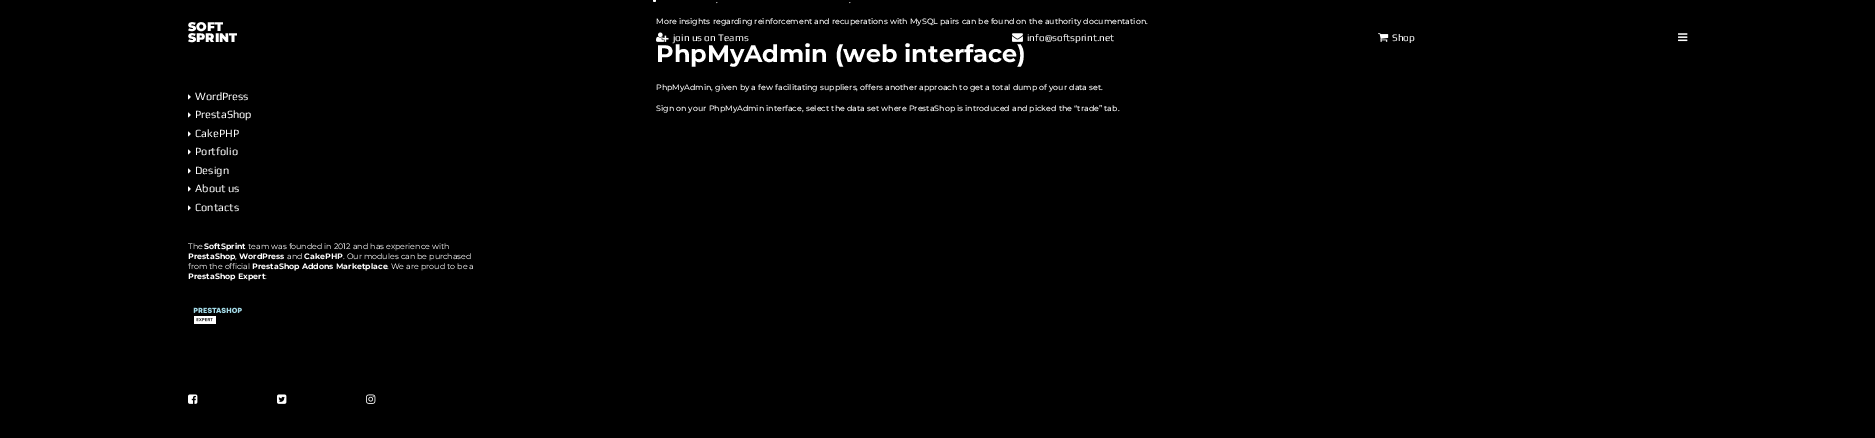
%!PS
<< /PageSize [1875 438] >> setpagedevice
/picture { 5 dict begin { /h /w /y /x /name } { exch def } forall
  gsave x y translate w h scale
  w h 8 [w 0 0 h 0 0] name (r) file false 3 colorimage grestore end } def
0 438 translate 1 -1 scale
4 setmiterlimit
0 setgray
0 0 1875 438 rectfill
1 setgray
newpath 654.5 0.5 1.5 0 360 arc closepath fill
/Montserrat-Medium [7.88 0 0 -7.88 0 0] selectfont
716 3 moveto (.) show
849 3 moveto (.) show
656 24 moveto (More insights regarding reinforcement and recuperations with MySQL pairs can be found on the authority documentation.) show
/Montserrat-Bold [24 0 0 -24 0 0] selectfont
656 62 moveto (PhpMyAdmin \(web interface\)) show
/Montserrat-Medium [7.88 0 0 -7.88 0 0] selectfont
656 90 moveto (PhpMyAdmin, given by a few facilitating suppliers, offers another approach to get a total dump of your data set.) show
656 111 moveto (Sign on your PhpMyAdmin interface, select the data set where PrestaShop is introduced and picked the “trade” tab.) show
/Montserrat-Black [12.5 0 0 -12.5 0 0] selectfont
188 31 moveto (SOFT) show
188 42 moveto (SPRINT) show
(img1.rgb) 656 32 13 10 picture
/Play-Regular [10 0 0 -10 0 0] selectfont
673 41 moveto (join us on Teams) show
(img2.rgb) 1012 33 11 9 picture
1027 41 moveto (info@softsprint.net) show
(img3.rgb) 1378 33 11 9 picture
1392 41 moveto (Shop) show
(img4.rgb) 1678 33 10 9 picture
(img5.rgb) 188 94 3 6 picture
/Play-Regular [11 0 0 -11 0 0] selectfont
195 100 moveto (WordPress) show
(img5.rgb) 188 112 3 6 picture
195 118 moveto (PrestaShop) show
(img5.rgb) 188 131 3 6 picture
195 137 moveto (CakePHP) show
(img5.rgb) 188 149 3 6 picture
195 155 moveto (Portfolio) show
(img5.rgb) 188 168 3 6 picture
195 174 moveto (Design) show
(img5.rgb) 188 186 3 6 picture
195 192 moveto (About us) show
(img5.rgb) 188 205 3 6 picture
195 211 moveto (Contacts) show
/Montserrat-Regular [7.88 0 0 -7.88 0 0] selectfont
188 249 moveto (The) show
/Montserrat-Bold [7.88 0 0 -7.88 0 0] selectfont
204 249 moveto (SoftSprint) show
/Montserrat-Regular [7.88 0 0 -7.88 0 0] selectfont
248 249 moveto (team was founded in 2012 and has experience with) show
/Montserrat-Bold [7.88 0 0 -7.88 0 0] selectfont
188 259 moveto (PrestaShop) show
/Montserrat-Regular [7.88 0 0 -7.88 0 0] selectfont
235 259 moveto (,) show
/Montserrat-Bold [7.88 0 0 -7.88 0 0] selectfont
239 259 moveto (WordPress) show
/Montserrat-Regular [7.88 0 0 -7.88 0 0] selectfont
287 259 moveto (and) show
/Montserrat-Bold [7.88 0 0 -7.88 0 0] selectfont
304 259 moveto (CakePHP) show
/Montserrat-Regular [7.88 0 0 -7.88 0 0] selectfont
343 259 moveto (. Our modules can be purchased) show
188 269 moveto (from the official) show
/Montserrat-Bold [7.88 0 0 -7.88 0 0] selectfont
252 269 moveto (PrestaShop Addons Marketplace) show
/Montserrat-Regular [7.88 0 0 -7.88 0 0] selectfont
387 269 moveto (. We are proud to be a) show
/Montserrat-Bold [7.88 0 0 -7.88 0 0] selectfont
188 279 moveto (PrestaShop Expert) show
/Montserrat-Regular [7.88 0 0 -7.88 0 0] selectfont
265 279 moveto (:) show
(img6.rgb) 193 307 49 17 picture
(img7.rgb) 188 394 10 10 picture
(img8.rgb) 277 394 10 10 picture
(img9.rgb) 366 394 10 10 picture
showpage
